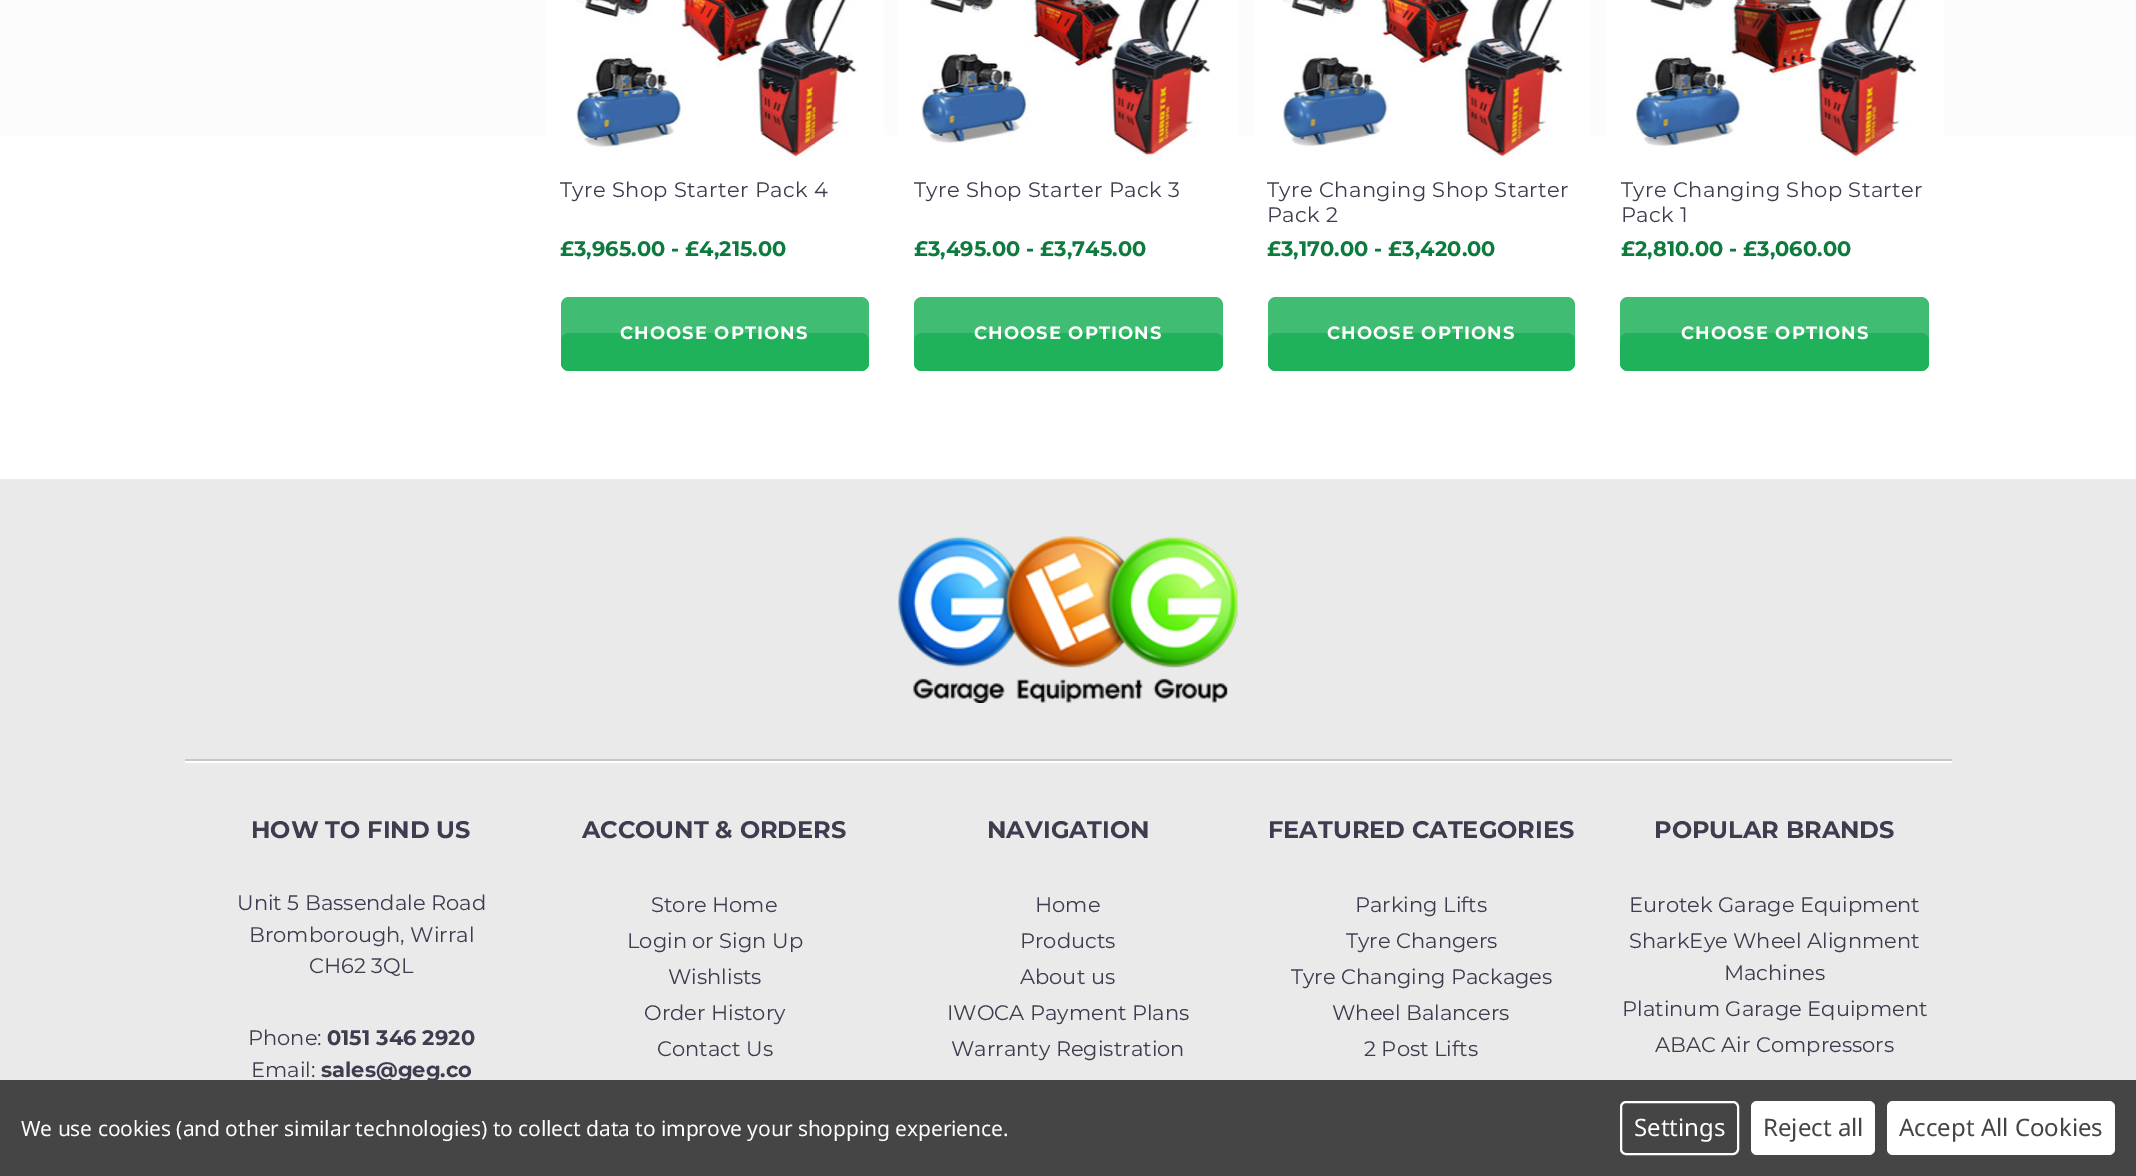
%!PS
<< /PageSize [2136 1176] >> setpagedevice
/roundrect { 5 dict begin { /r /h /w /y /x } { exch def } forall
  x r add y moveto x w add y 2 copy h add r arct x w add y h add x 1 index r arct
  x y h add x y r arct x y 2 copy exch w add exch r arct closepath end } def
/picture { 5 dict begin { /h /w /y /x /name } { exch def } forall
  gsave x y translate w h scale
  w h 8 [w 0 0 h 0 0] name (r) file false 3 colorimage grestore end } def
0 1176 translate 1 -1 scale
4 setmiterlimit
1 setgray
0 0 2136 1176 rectfill
gsave newpath 0 0 moveto 2136 0 lineto 2136 136 lineto 0 136 lineto closepath clip newpath
<< /ShadingType 2 /ColorSpace /DeviceRGB /Coords [1068 -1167 1068 479] /Extend [true true] /Function << /FunctionType 2 /Domain [0 1] /C0 [0.953 0.953 0.953] /C1 [1 1 1] /N 1 >> >> shfill grestore
546 -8 338 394 8 roundrect fill
(img1.rgb) 576 0 281 160 picture
/Montserrat-Regular [21 0 0 -21 0 0] selectfont
0.243 0.239 0.31 setrgbcolor
560 197 moveto 0.4 0 (Tyre Shop Starter Pack 4) ashow
/Montserrat-Bold [21 0 0 -21 0 0] selectfont
0.051 0.482 0.239 setrgbcolor
560 256 moveto (£3,965.00 - £4,215.00) show
0.251 0.741 0.451 setrgbcolor
561 297 308 74 8 roundrect fill
0.122 0.698 0.353 setrgbcolor
561 333 308 38 8 roundrect fill
/Montserrat-Bold [18 0 0 -18 0 0] selectfont
1 setgray
620 339 moveto 1.1 0 (CHOOSE OPTIONS) ashow
899 -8 339 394 8 roundrect fill
(img2.rgb) 921 0 290 160 picture
/Montserrat-Regular [21 0 0 -21 0 0] selectfont
0.243 0.239 0.31 setrgbcolor
914 197 moveto 0.4 0 (Tyre Shop Starter Pack 3) ashow
/Montserrat-Bold [21 0 0 -21 0 0] selectfont
0.051 0.482 0.239 setrgbcolor
914 256 moveto (£3,495.00 - £3,745.00) show
0.251 0.741 0.451 setrgbcolor
914 297 309 74 8 roundrect fill
0.122 0.698 0.353 setrgbcolor
914 333 309 38 8 roundrect fill
/Montserrat-Bold [18 0 0 -18 0 0] selectfont
1 setgray
974 339 moveto 1.1 0 (CHOOSE OPTIONS) ashow
1253 -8 337 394 8 roundrect fill
(img3.rgb) 1283 0 280 160 picture
/Montserrat-Regular [21 0 0 -21 0 0] selectfont
0.243 0.239 0.31 setrgbcolor
1267 197 moveto 0.4 0 (Tyre Changing Shop Starter) ashow
1267 222 moveto 0.4 0 (Pack 2) ashow
/Montserrat-Bold [21 0 0 -21 0 0] selectfont
0.051 0.482 0.239 setrgbcolor
1267 256 moveto (£3,170.00 - £3,420.00) show
0.251 0.741 0.451 setrgbcolor
1268 297 307 74 8 roundrect fill
0.122 0.698 0.353 setrgbcolor
1268 333 307 38 8 roundrect fill
/Montserrat-Bold [18 0 0 -18 0 0] selectfont
1 setgray
1327 339 moveto 1.1 0 (CHOOSE OPTIONS) ashow
1605 -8 339 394 8 roundrect fill
(img4.rgb) 1635 0 282 160 picture
/Montserrat-Regular [21 0 0 -21 0 0] selectfont
0.243 0.239 0.31 setrgbcolor
1621 197 moveto 0.4 0 (Tyre Changing Shop Starter) ashow
1621 222 moveto 0.4 0 (Pack 1) ashow
/Montserrat-Bold [21 0 0 -21 0 0] selectfont
0.051 0.482 0.239 setrgbcolor
1621 256 moveto (£2,810.00 - £3,060.00) show
0.251 0.741 0.451 setrgbcolor
1620 297 309 74 8 roundrect fill
0.122 0.698 0.353 setrgbcolor
1620 333 309 38 8 roundrect fill
/Montserrat-Bold [18 0 0 -18 0 0] selectfont
1 setgray
1681 339 moveto 1.1 0 (CHOOSE OPTIONS) ashow
0.918 setgray
0 479 2136 601 rectfill
(img5.rgb) 898 536 340 167 picture
0.784 setgray
185 759 1767 2 rectfill
1 setgray
185 761 1767 2 rectfill
/Montserrat-Bold [24 0 0 -24 0 0] selectfont
0.243 0.239 0.31 setrgbcolor
251 838 moveto (HOW TO FIND US) show
/Montserrat-Regular [21 0 0 -21 0 0] selectfont
237 910 moveto (Unit 5 Bassendale Road) show
249 942 moveto (Bromborough, Wirral) show
309 973 moveto (CH62 3QL) show
248 1045 moveto (Phone:) show
/Montserrat-Bold [21 0 0 -21 0 0] selectfont
327 1045 moveto (0151 346 2920) show
/Montserrat-Regular [21 0 0 -21 0 0] selectfont
251 1077 moveto (Email:) show
/Montserrat-Bold [21 0 0 -21 0 0] selectfont
321 1077 moveto (sales@geg.co) show
/Montserrat-Bold [24 0 0 -24 0 0] selectfont
582 838 moveto (ACCOUNT & ORDERS) show
/Montserrat-Regular [21 0 0 -21 0 0] selectfont
651 912 moveto (Store Home) show
627 948 moveto (Login or Sign Up) show
668 984 moveto (Wishlists) show
644 1020 moveto (Order History) show
657 1056 moveto (Contact Us) show
/Montserrat-Bold [24 0 0 -24 0 0] selectfont
987 838 moveto (NAVIGATION) show
/Montserrat-Regular [21 0 0 -21 0 0] selectfont
1035 912 moveto (Home) show
1020 948 moveto (Products) show
1020 984 moveto (About us) show
947 1020 moveto (IWOCA Payment Plans) show
951 1056 moveto (Warranty Registration) show
/Montserrat-Bold [24 0 0 -24 0 0] selectfont
1268 838 moveto (FEATURED CATEGORIES) show
/Montserrat-Regular [21 0 0 -21 0 0] selectfont
1355 912 moveto (Parking Lifts) show
1346 948 moveto (Tyre Changers) show
1291 984 moveto (Tyre Changing Packages) show
1332 1020 moveto (Wheel Balancers) show
1364 1056 moveto (2 Post Lifts) show
/Montserrat-Bold [24 0 0 -24 0 0] selectfont
1654 838 moveto (POPULAR BRANDS) show
/Montserrat-Regular [21 0 0 -21 0 0] selectfont
1629 912 moveto (Eurotek Garage Equipment) show
1629 948 moveto (SharkEye Wheel Alignment) show
1724 980 moveto (Machines) show
1622 1016 moveto (Platinum Garage Equipment) show
1655 1052 moveto (ABAC Air Compressors) show
0.271 setgray
0 1080 2136 96 rectfill
/NotoSans-Regular [21 0 0 -21 0 0] selectfont
1 setgray
21 1136 moveto -0.08 0 (We use cookies \(and other similar technologies\) to collect data to improve your shopping experience.) ashow
2 setlinewidth
1621 1102 117 52 5 roundrect stroke
/NotoSans-Regular [24 0 0 -24 0 0] selectfont
1634 1136 moveto (Settings) show
1751 1101 124 54 6 roundrect fill
0.271 setgray
1763 1136 moveto (Reject all) show
1 setgray
1887 1101 228 54 6 roundrect fill
0.271 setgray
1899 1136 moveto (Accept All Cookies) show
showpage
